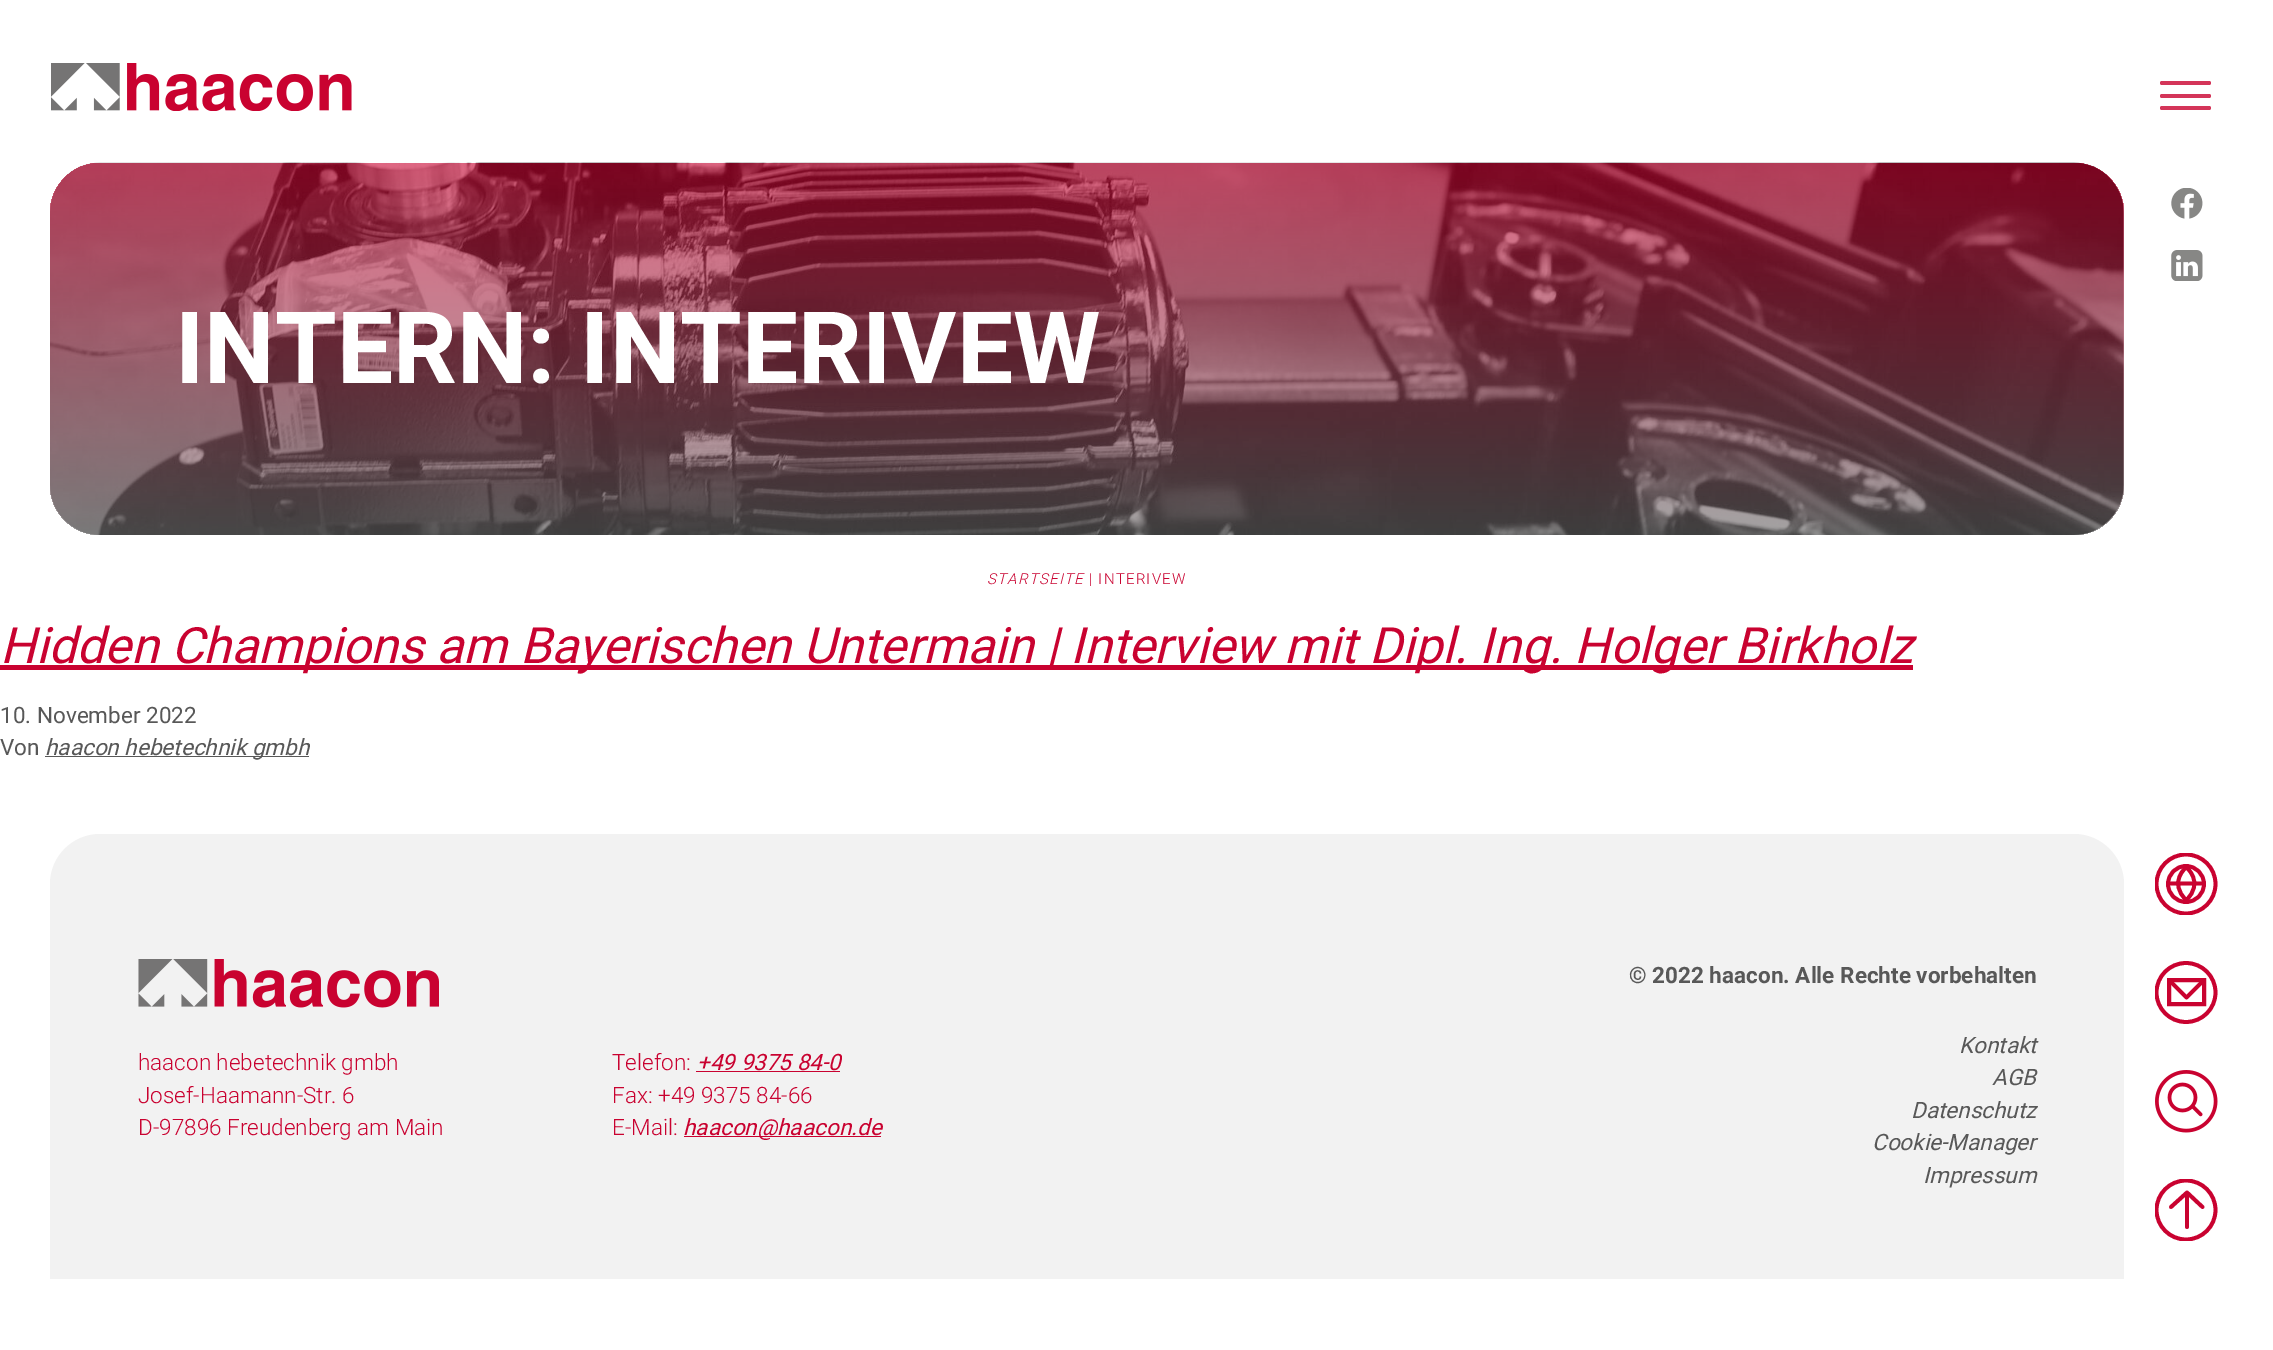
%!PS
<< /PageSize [2273 1350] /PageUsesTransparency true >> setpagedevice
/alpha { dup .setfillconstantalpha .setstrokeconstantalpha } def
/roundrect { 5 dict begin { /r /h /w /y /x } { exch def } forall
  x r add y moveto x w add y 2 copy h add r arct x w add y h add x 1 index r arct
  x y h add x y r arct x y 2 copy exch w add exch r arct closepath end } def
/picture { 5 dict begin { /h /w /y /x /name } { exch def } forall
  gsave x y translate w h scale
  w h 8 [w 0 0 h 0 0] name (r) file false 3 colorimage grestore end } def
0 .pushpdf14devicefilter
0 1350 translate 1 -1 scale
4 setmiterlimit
1 setgray
0 0 2273 1350 rectfill
(img1.rgb) 51 63 301 48 picture
0.831 0.208 0.349 setrgbcolor
2160 81 51 4 2 roundrect fill
2160 94 51 4 2 roundrect fill
2160 106 51 4 2 roundrect fill
(img2.rgb) 50 162 2074 373 picture
0.6 alpha
gsave 50 163 2074 372 50 roundrect clip newpath
<< /ShadingType 2 /ColorSpace /DeviceRGB /Coords [1087 162 1087 535] /Extend [true true] /Function << /FunctionType 2 /Domain [0 1] /C0 [0.788 0.008 0.188] /C1 [0.392 0.392 0.392] /N 1 >> >> shfill grestore
/Roboto-Bold [100 0 0 -100 0 0] selectfont
1 alpha
1 setgray
175 383 moveto (INTERN: INTERIVEW) show
/Roboto-LightItalic [15 0 0 -15 0 0] selectfont
0.788 0.008 0.188 setrgbcolor
987 584 moveto 1.25 0 (STARTSEITE) ashow
/Roboto-Light [15 0 0 -15 0 0] selectfont
1089 584 moveto 1.25 0 (| INTERIVEW) ashow
0 665 1913 5 rectfill
/Roboto-Italic [50 0 0 -50 0 0] selectfont
0 663 moveto (Hidden Champions am Bayerischen Untermain | Interview mit Dipl. Ing. Holger Birkholz) show
/Roboto-Regular [22.5 0 0 -22.5 0 0] selectfont
0.345 setgray
0 723 moveto (10. November 2022) show
0 755 moveto (Von) show
45 756 264 1 rectfill
/Roboto-Italic [22.5 0 0 -22.5 0 0] selectfont
45 755 moveto (haacon hebetechnik gmbh) show
(img3.rgb) 2171 188 32 31 picture
(img4.rgb) 2171 250 32 31 picture
gsave
2155 853 63 62 rectclip
0.788 0.008 0.188 setrgbcolor
3.8 setlinewidth
newpath 2186 884 29.5 0 360 arc closepath stroke
grestore
0.788 0.008 0.188 setrgbcolor
3.8 setlinewidth
newpath 2186 884 18 0 360 arc closepath stroke
1 setlinecap
newpath 2169.5 883.5 moveto 2202 883.5 lineto stroke
0 setlinecap
newpath 2186.5 867 moveto 2186.5 867 2167.5 882 2186.5 900.5 curveto 2186 867 moveto 2186 867 2205 882 2186 900.5 curveto stroke
gsave
2155 961 63 63 rectclip
newpath 2186 992.5 29.5 0 360 arc closepath stroke
grestore
4 setlinewidth
2169 980 35 24 rectstroke
3.8 setlinewidth
1 setlinecap
1 setlinejoin
newpath 2172 983 moveto 2186.5 997.5 lineto 2201 983 lineto stroke
(img5.rgb) 2155 1070 63 63 picture
gsave
2155 1179 63 62 rectclip
0 setlinecap
0 setlinejoin
newpath 2186 1210 29.5 0 360 arc closepath stroke
grestore
0 setlinejoin
newpath 2187 1195 moveto 2187 1227 lineto 2171 1207 moveto 2187 1192.5 lineto 2202.5 1207 moveto 2187 1192.5 lineto stroke
0.949 setgray
newpath 100 834 moveto 2074 834 lineto 2101.5 834 2124 856.5 2124 884 curveto 2124 1279 lineto 50 1279 lineto 50 884 lineto 50 856.5 72.5 834 100 834 curveto closepath fill
(img6.rgb) 138 959 301 49 picture
/Roboto-Light [22.5 0 0 -22.5 0 0] selectfont
0.788 0.008 0.188 setrgbcolor
138 1070 moveto (haacon hebetechnik gmbh) show
138 1103 moveto (Josef-Haamann-Str. 6) show
138 1135 moveto (D-97896 Freudenberg am Main) show
612 1070 moveto (Telefon:) show
/Roboto-Italic [22.5 0 0 -22.5 0 0] selectfont
697 1070 moveto (+49 9375 84-0) show
696 1071 144 1 rectfill
/Roboto-Light [22.5 0 0 -22.5 0 0] selectfont
612 1103 moveto (Fax: +49 9375 84-66) show
612 1135 moveto (E-Mail:) show
684 1136 197 1 rectfill
/Roboto-Italic [22.5 0 0 -22.5 0 0] selectfont
683 1135 moveto (haacon@haacon.de) show
/Roboto-Bold [22.5 0 0 -22.5 0 0] selectfont
0.345 setgray
1629 983 moveto (© 2022 haacon. Alle Rechte vorbehalten) show
/Roboto-Italic [22.5 0 0 -22.5 0 0] selectfont
1959 1053 moveto (Kontakt) show
1992 1085 moveto (AGB) show
1911 1118 moveto (Datenschutz) show
1872 1150 moveto (Cookie-Manager) show
1923 1183 moveto (Impressum) show
.poppdf14devicefilter showpage
